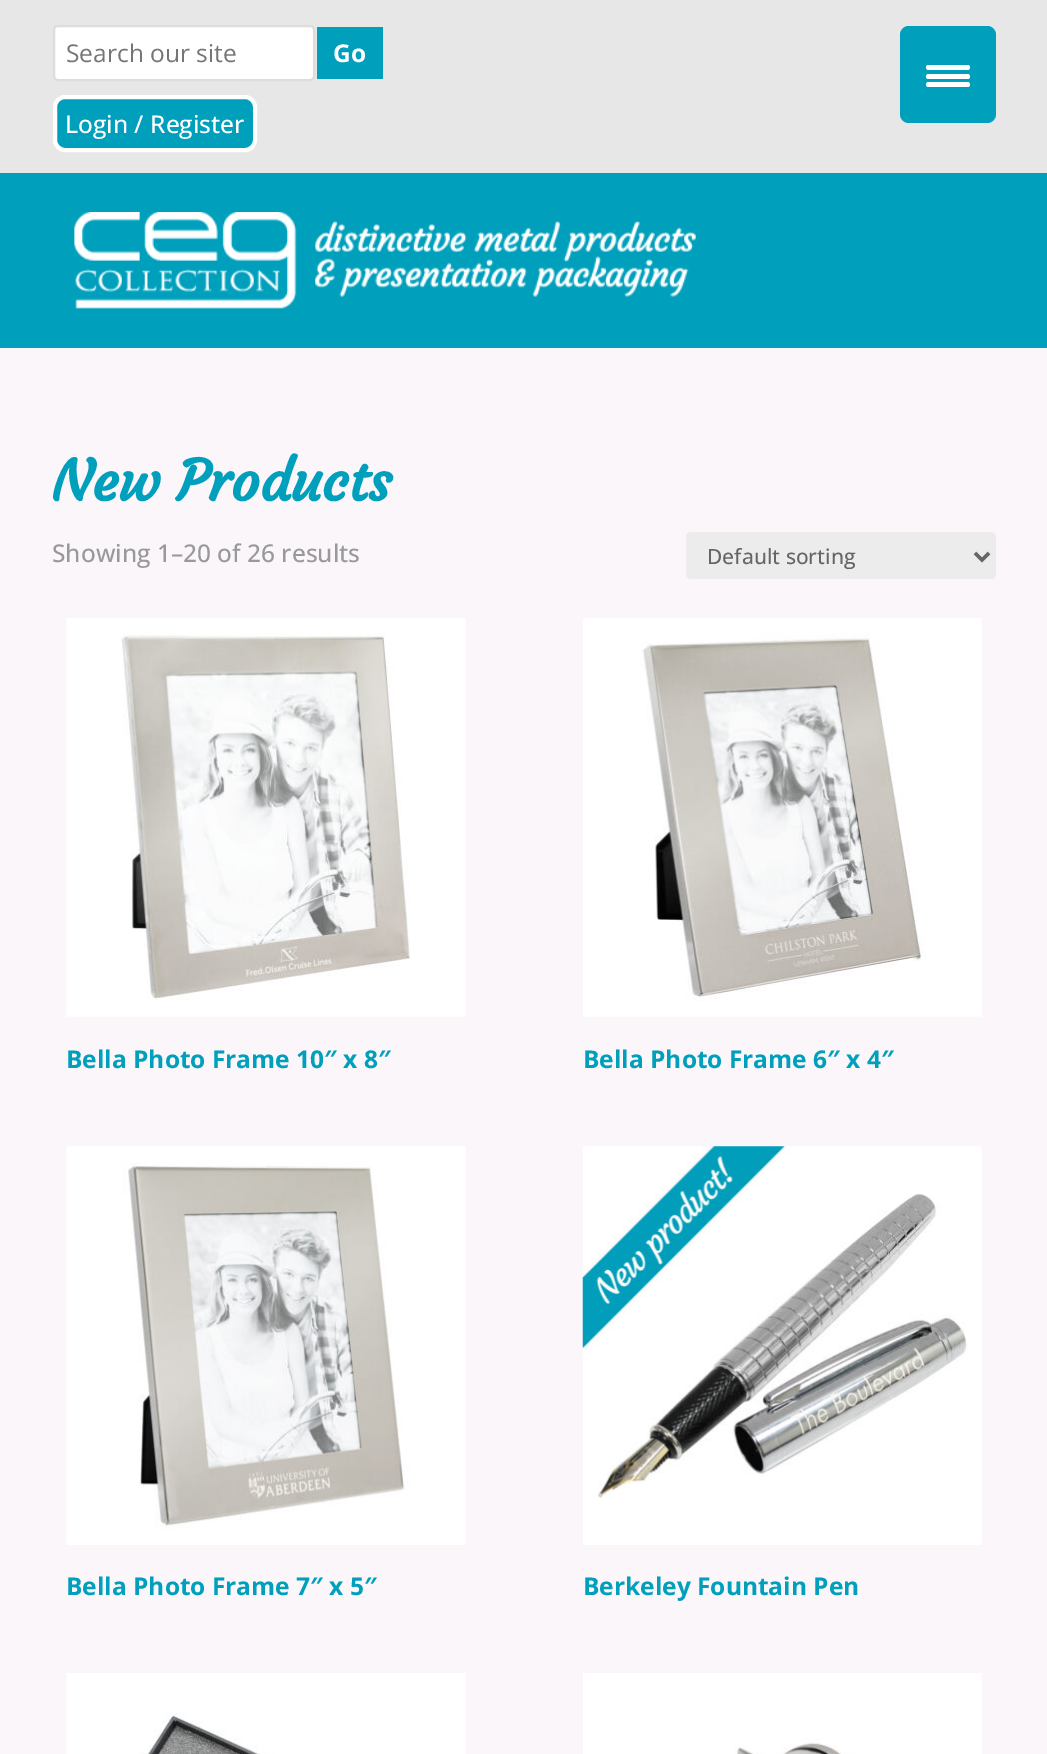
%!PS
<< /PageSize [1047 1754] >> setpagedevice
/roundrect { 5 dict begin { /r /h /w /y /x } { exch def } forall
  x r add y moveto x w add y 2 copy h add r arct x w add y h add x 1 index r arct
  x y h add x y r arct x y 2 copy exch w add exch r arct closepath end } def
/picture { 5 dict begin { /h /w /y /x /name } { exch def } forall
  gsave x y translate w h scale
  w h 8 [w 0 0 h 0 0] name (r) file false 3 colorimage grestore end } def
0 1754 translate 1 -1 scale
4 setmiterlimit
0.98 0.965 0.98 setrgbcolor
0 0 1047 1754 rectfill
0.906 0.906 0.91 setrgbcolor
0 0 1047 173 rectfill
1 setgray
54 26 260 54 4 roundrect gsave fill grestore
0.867 setgray
2 setlinewidth
stroke
/OpenSans-Regular [24.5 0 0 -24.5 0 0] selectfont
0.459 setgray
66 62 moveto (Search our site) show
0 0.624 0.737 setrgbcolor
317 27 66 52 rectfill
/OpenSans-Bold [24.5 0 0 -24.5 0 0] selectfont
1 setgray
333 62 moveto (Go) show
0 0.624 0.737 setrgbcolor
55 97 200 53 10 roundrect gsave fill grestore
1 setgray
4 setlinewidth
stroke
/OpenSans-Medium [24.5 0 0 -24.5 0 0] selectfont
65 133 moveto (Login / Register) show
0 0.624 0.737 setrgbcolor
0 173 1047 175 rectfill
(img1.rgb) 74 212 622 97 picture
/Courgette-Bold [56 0 0 -56 0 0] selectfont
52 501 moveto (New Products) show
/OpenSans-Medium [24.5 0 0 -24.5 0 0] selectfont
0.6 setgray
52 562 moveto (Showing 1–20 of 26 results) show
0.925 setgray
686 532 310 47 5 roundrect fill
0.4 setgray
3.5 setlinewidth
newpath 975 553 moveto 982 560 lineto 989 553 lineto stroke
/OpenSans-Medium [21 0 0 -21 0 0] selectfont
707 564 moveto (Default sorting) show
(img2.rgb) 66 618 400 399 picture
/OpenSans-Bold [24.5 0 0 -24.5 0 0] selectfont
0 0.624 0.737 setrgbcolor
66 1068 moveto (Bella Photo Frame 10″ x 8″) show
(img3.rgb) 583 618 399 399 picture
583 1068 moveto (Bella Photo Frame 6″ x 4″) show
(img4.rgb) 66 1146 400 399 picture
66 1595 moveto (Bella Photo Frame 7″ x 5″) show
(img5.rgb) 582 1146 400 399 picture
583 1595 moveto (Berkeley Fountain Pen) show
(img6.rgb) 66 1673 400 81 picture
(img7.rgb) 583 1673 399 81 picture
900 26 96 97 9 roundrect fill
1 setgray
926 74 44 5 2.5 roundrect fill
926 65 44 5 2.5 roundrect fill
926 82 44 5 2.5 roundrect fill
showpage
